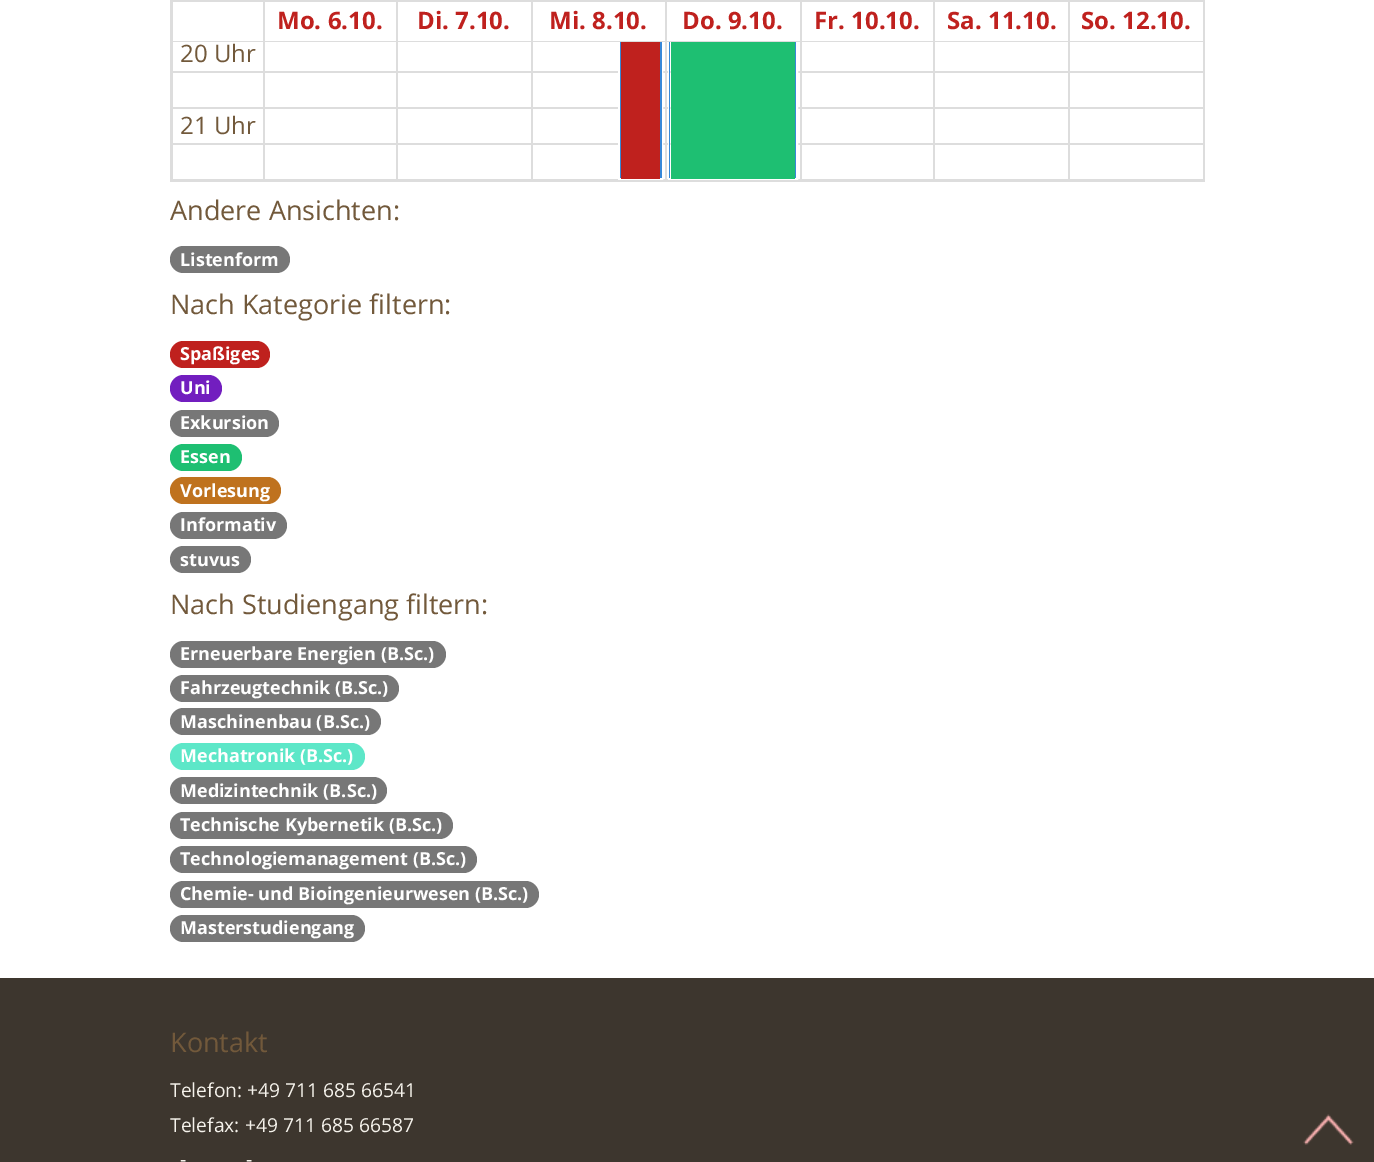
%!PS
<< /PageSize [1374 1162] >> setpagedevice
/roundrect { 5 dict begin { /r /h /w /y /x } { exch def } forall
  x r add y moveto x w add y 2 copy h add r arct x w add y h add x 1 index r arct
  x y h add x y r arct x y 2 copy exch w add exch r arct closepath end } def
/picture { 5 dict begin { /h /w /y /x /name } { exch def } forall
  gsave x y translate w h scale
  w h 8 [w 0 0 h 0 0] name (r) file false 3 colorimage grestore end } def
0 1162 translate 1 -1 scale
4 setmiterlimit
1 setgray
0 0 1374 1162 rectfill
0.867 setgray
170 0 1 182 rectfill
1068 179 135 1 rectfill
1068 42 2 138 rectfill
933 179 137 1 rectfill
933 42 2 138 rectfill
800 179 135 1 rectfill
800 42 2 138 rectfill
665 179 136 1 rectfill
665 42 2 138 rectfill
531 179 135 1 rectfill
531 42 2 138 rectfill
396 179 137 1 rectfill
396 42 2 138 rectfill
263 179 135 1 rectfill
263 42 2 138 rectfill
171 179 93 1 rectfill
171 42 2 138 rectfill
171 71 1032 2 rectfill
171 107 1032 2 rectfill
171 143 1032 2 rectfill
1 setgray
2 setlinewidth
619 -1 43 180 rectstroke
0.749 0.129 0.118 setrgbcolor
621 42 39 137 rectfill
0.216 0.533 0.847 setrgbcolor
newpath 624 -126 moveto 657 -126 lineto 659 -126 662 -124 662 -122 curveto 662 178 lineto 620 178 lineto 620 -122 lineto 620 -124 622 -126 624 -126 curveto closepath 624 -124 moveto 657 -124 lineto 659 -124 660 -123 660 -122 curveto 660 178 lineto 621 178 lineto 621 -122 lineto 621 -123 622 -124 624 -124 curveto closepath eofill
1 setgray
669 -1 128 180 rectstroke
0.118 0.749 0.447 setrgbcolor
671 42 124 137 rectfill
0.216 0.533 0.847 setrgbcolor
newpath 674 -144 moveto 792 -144 lineto 794 -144 796 -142 796 -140 curveto 796 178 lineto 669 178 lineto 669 -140 lineto 669 -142 671 -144 674 -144 curveto closepath 674 -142 moveto 792 -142 lineto 794 -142 795 -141 795 -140 curveto 795 178 lineto 670 178 lineto 670 -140 lineto 670 -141 672 -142 674 -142 curveto closepath eofill
1 setgray
620 2 176 39 rectfill
0.867 setgray
1068 0 135 2 rectfill
1068 41 135 1 rectfill
1068 0 2 42 rectfill
933 0 137 2 rectfill
933 41 137 1 rectfill
933 0 2 42 rectfill
800 0 135 2 rectfill
800 41 135 1 rectfill
800 0 2 42 rectfill
665 0 136 2 rectfill
665 41 136 1 rectfill
665 0 2 42 rectfill
531 0 135 2 rectfill
531 41 135 1 rectfill
531 0 2 42 rectfill
396 0 137 2 rectfill
396 41 137 1 rectfill
396 0 2 42 rectfill
263 0 135 2 rectfill
263 41 135 1 rectfill
263 0 2 42 rectfill
171 0 93 2 rectfill
171 41 93 1 rectfill
171 0 2 42 rectfill
/OpenSans-Bold [24 0 0 -24 0 0] selectfont
0.749 0.129 0.118 setrgbcolor
277 29 moveto (Mo. 6.10.) show
417 29 moveto (Di. 7.10.) show
549 29 moveto (Mi. 8.10.) show
682 29 moveto (Do. 9.10.) show
814 29 moveto (Fr. 10.10.) show
947 29 moveto (Sa. 11.10.) show
1081 29 moveto (So. 12.10.) show
0.867 setgray
1203 0 2 182 rectfill
171 180 1034 2 rectfill
/OpenSans-Regular [24 0 0 -24 0 0] selectfont
0.447 0.349 0.231 setrgbcolor
180 62 moveto (20 Uhr) show
180 134 moveto (21 Uhr) show
/OpenSans-Regular [27 0 0 -27 0 0] selectfont
170 220 moveto (Andere Ansichten:) show
0.467 setgray
170 246 120 27 13.5 roundrect fill
/OpenSans-Bold [18 0 0 -18 0 0] selectfont
1 setgray
180 266 moveto (Listenform) show
/OpenSans-Regular [27 0 0 -27 0 0] selectfont
0.447 0.349 0.231 setrgbcolor
170 314 moveto (Nach Kategorie filtern:) show
0.749 0.129 0.118 setrgbcolor
170 341 100 27 13.5 roundrect fill
/OpenSans-Bold [18 0 0 -18 0 0] selectfont
1 setgray
180 360 moveto (Spaßiges) show
0.447 0.118 0.749 setrgbcolor
170 375 52 27 13.5 roundrect fill
1 setgray
180 394 moveto (Uni) show
0.467 setgray
170 410 109 27 13.5 roundrect fill
1 setgray
180 429 moveto (Exkursion) show
0.118 0.749 0.447 setrgbcolor
170 444 72 27 13.5 roundrect fill
1 setgray
180 463 moveto (Essen) show
0.749 0.447 0.118 setrgbcolor
170 477 111 27 13.5 roundrect fill
1 setgray
180 497 moveto (Vorlesung) show
0.467 setgray
170 512 117 27 13.5 roundrect fill
1 setgray
180 531 moveto (Informativ) show
0.467 setgray
170 546 81 27 13.5 roundrect fill
1 setgray
180 566 moveto (stuvus) show
/OpenSans-Regular [27 0 0 -27 0 0] selectfont
0.447 0.349 0.231 setrgbcolor
170 614 moveto (Nach Studiengang filtern:) show
0.467 setgray
170 641 276 27 13.5 roundrect fill
/OpenSans-Bold [18 0 0 -18 0 0] selectfont
1 setgray
180 660 moveto (Erneuerbare Energien \(B.Sc.\)) show
0.467 setgray
170 675 229 27 13.5 roundrect fill
1 setgray
180 694 moveto (Fahrzeugtechnik \(B.Sc.\)) show
0.467 setgray
170 708 211 27 13.5 roundrect fill
1 setgray
180 728 moveto (Maschinenbau \(B.Sc.\)) show
0.365 0.906 0.784 setrgbcolor
170 743 195 27 13.5 roundrect fill
1 setgray
180 762 moveto (Mechatronik \(B.Sc.\)) show
0.467 setgray
170 777 217 27 13.5 roundrect fill
1 setgray
180 797 moveto (Medizintechnik \(B.Sc.\)) show
0.467 setgray
170 812 283 27 13.5 roundrect fill
1 setgray
180 831 moveto (Technische Kybernetik \(B.Sc.\)) show
0.467 setgray
170 846 307 27 13.5 roundrect fill
1 setgray
180 865 moveto (Technologiemanagement \(B.Sc.\)) show
0.467 setgray
170 881 369 27 13.5 roundrect fill
1 setgray
180 900 moveto (Chemie- und Bioingenieurwesen \(B.Sc.\)) show
0.467 setgray
170 915 195 27 13.5 roundrect fill
1 setgray
180 934 moveto (Masterstudiengang) show
0.239 0.212 0.18 setrgbcolor
0 978 1374 184 rectfill
/OpenSans-Regular [27 0 0 -27 0 0] selectfont
0.447 0.349 0.231 setrgbcolor
170 1052 moveto (Kontakt) show
/OpenSans-Regular [19.25 0 0 -19.25 0 0] selectfont
0.961 0.949 0.922 setrgbcolor
170 1097 moveto (Telefon: +49 711 685 66541) show
170 1132 moveto (Telefax: +49 711 685 66587) show
180 1166 moveto (-) show
246 1166 moveto (-) show
(img1.rgb) 1303 1114 51 31 picture
showpage
